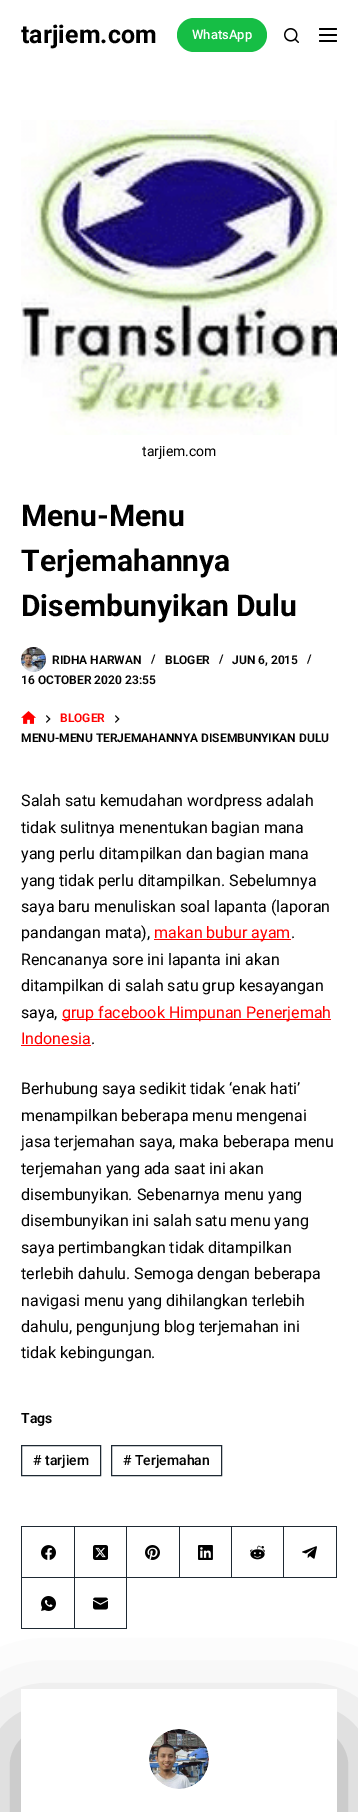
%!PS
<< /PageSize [358 1812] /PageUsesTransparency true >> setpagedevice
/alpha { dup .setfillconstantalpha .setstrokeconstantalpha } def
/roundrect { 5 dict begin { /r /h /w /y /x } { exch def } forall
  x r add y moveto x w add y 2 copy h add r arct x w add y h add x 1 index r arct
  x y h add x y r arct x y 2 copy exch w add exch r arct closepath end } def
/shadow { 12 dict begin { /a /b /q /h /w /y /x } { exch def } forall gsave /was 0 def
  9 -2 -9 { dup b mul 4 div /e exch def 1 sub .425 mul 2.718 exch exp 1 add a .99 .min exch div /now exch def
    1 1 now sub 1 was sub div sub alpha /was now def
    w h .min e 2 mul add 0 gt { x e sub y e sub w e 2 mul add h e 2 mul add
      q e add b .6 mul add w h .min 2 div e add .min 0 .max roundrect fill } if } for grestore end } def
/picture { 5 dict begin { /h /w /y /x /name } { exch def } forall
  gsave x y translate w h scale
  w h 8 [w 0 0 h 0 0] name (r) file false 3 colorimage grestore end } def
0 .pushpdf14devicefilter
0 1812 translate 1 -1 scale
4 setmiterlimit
1 setgray
0 0 358 1812 rectfill
/Roboto-Bold [25 0 0 -25 0 0] selectfont
0 setgray
21 43 moveto (tarjiem.com) show
0.086 0.745 0.271 setrgbcolor
177 18 90 34 17 roundrect fill
/Roboto-Medium [13 0 0 -13 0 0] selectfont
1 setgray
192 39 moveto (WhatsApp) show
(img1.rgb) 284 28 15 15 picture
0 setgray
319 28 18 2 1 roundrect fill
319 34 18 2 1 roundrect fill
319 40 18 2 1 roundrect fill
(img2.rgb) 21 120 316 315 picture
/Roboto-Regular [14 0 0 -14 0 0] selectfont
142 456 moveto (tarjiem.com) show
/Roboto-Bold [30 0 0 -30 0 0] selectfont
21 526 moveto (Menu-Menu) show
21 571 moveto (Terjemahannya) show
21 616 moveto (Disembunyikan Dulu) show
(img3.rgb) 21 647 25 25 picture
/Roboto-SemiBold [12 0 0 -12 0 0] selectfont
52 664 moveto (RIDHA HARWAN) show
151 663 moveto (/) show
165 664 moveto (BLOGER) show
219 663 moveto (/) show
232 664 moveto (JUN 6, 2015) show
307 663 moveto (/) show
21 684 moveto (16 OCTOBER 2020 23:55) show
(img4.rgb) 21 711 15 13 picture
(img5.rgb) 46 715 5 8 picture
1 0 0 setrgbcolor
60 722 moveto (BLOGER) show
(img5.rgb) 115 715 5 8 picture
0 setgray
21 742 moveto (MENU-MENU TERJEMAHANNYA DISEMBUNYIKAN DULU) show
/Roboto-Regular [16 0 0 -16 0 0] selectfont
21 806 moveto (Salah satu kemudahan wordpress adalah) show
21 833 moveto (tidak sulitnya menentukan bagian mana) show
21 859 moveto (yang perlu ditampilkan dan bagian mana) show
21 886 moveto (yang tidak perlu ditampilkan. Sebelumnya) show
21 912 moveto (saya baru menuliskan soal lapanta \(laporan) show
21 938 moveto (pandangan mata\),) show
1 0 0 setrgbcolor
154 939 137 1 rectfill
154 938 moveto (makan bubur ayam) show
0 setgray
291 938 moveto (.) show
21 965 moveto (Rencananya sore ini lapanta ini akan) show
21 991 moveto (ditampilkan di salah satu grup kesayangan) show
21 1018 moveto (saya,) show
1 0 0 setrgbcolor
62 1019 269 1 rectfill
62 1018 moveto (grup facebook Himpunan Penerjemah) show
21 1044 moveto (Indonesia) show
21 1045 70 1 rectfill
0 setgray
91 1044 moveto (.) show
21 1094 moveto (Berhubung saya sedikit tidak ‘enak hati’) show
21 1121 moveto (menampilkan beberapa menu mengenai) show
21 1147 moveto (jasa terjemahan saya, maka beberapa menu) show
21 1174 moveto (terjemahan yang ada saat ini akan) show
21 1200 moveto (disembunyikan. Sebenarnya menu yang) show
21 1226 moveto (disembunyikan ini salah satu menu yang) show
21 1253 moveto (saya pertimbangkan tidak ditampilkan) show
21 1279 moveto (terlebih dahulu. Semoga dengan beberapa) show
21 1306 moveto (navigasi menu yang dihilangkan terlebih) show
21 1332 moveto (dahulu, pengunjung blog terjemahan ini) show
21 1358 moveto (tidak kebingungan.) show
/Roboto-SemiBold [14 0 0 -14 0 0] selectfont
21 1423 moveto (Tags) show
0.118 0.161 0.2 setrgbcolor
21.5 1445.5 79 30 rectstroke
/Roboto-Medium [14 0 0 -14 0 0] selectfont
0 setgray
33 1465 moveto (# tarjiem) show
0.118 0.161 0.2 setrgbcolor
111.5 1445.5 110 30 rectstroke
0 setgray
123 1465 moveto (# Terjemahan) show
0.118 0.161 0.2 setrgbcolor
21 1526 316 1 rectfill
gsave
newpath 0 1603 moveto 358 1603 lineto 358 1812 lineto 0 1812 lineto closepath 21 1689 moveto 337 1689 lineto 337 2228 lineto 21 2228 lineto closepath eoclip newpath
0 setgray
21 1739 316 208 0 45 0.4 shadow
grestore
21 1526 1 103 rectfill
74 1527 1 102 rectfill
22 1577 53 1 rectfill
(img6.rgb) 41 1545 15 15 picture
126 1527 1 102 rectfill
75 1577 52 1 rectfill
(img7.rgb) 93 1545 15 15 picture
179 1527 1 51 rectfill
127 1577 53 1 rectfill
(img8.rgb) 145 1545 15 15 picture
231 1527 1 51 rectfill
180 1577 52 1 rectfill
(img9.rgb) 198 1545 15 15 picture
283 1527 1 51 rectfill
232 1577 52 1 rectfill
(img10.rgb) 250 1545 15 15 picture
336 1527 1 51 rectfill
284 1577 53 1 rectfill
(img11.rgb) 302 1546 15 13 picture
22 1628 105 1 rectfill
(img12.rgb) 41 1596 15 15 picture
(img13.rgb) 93 1597 15 13 picture
(img14.rgb) 149 1729 60 60 picture
.poppdf14devicefilter showpage
